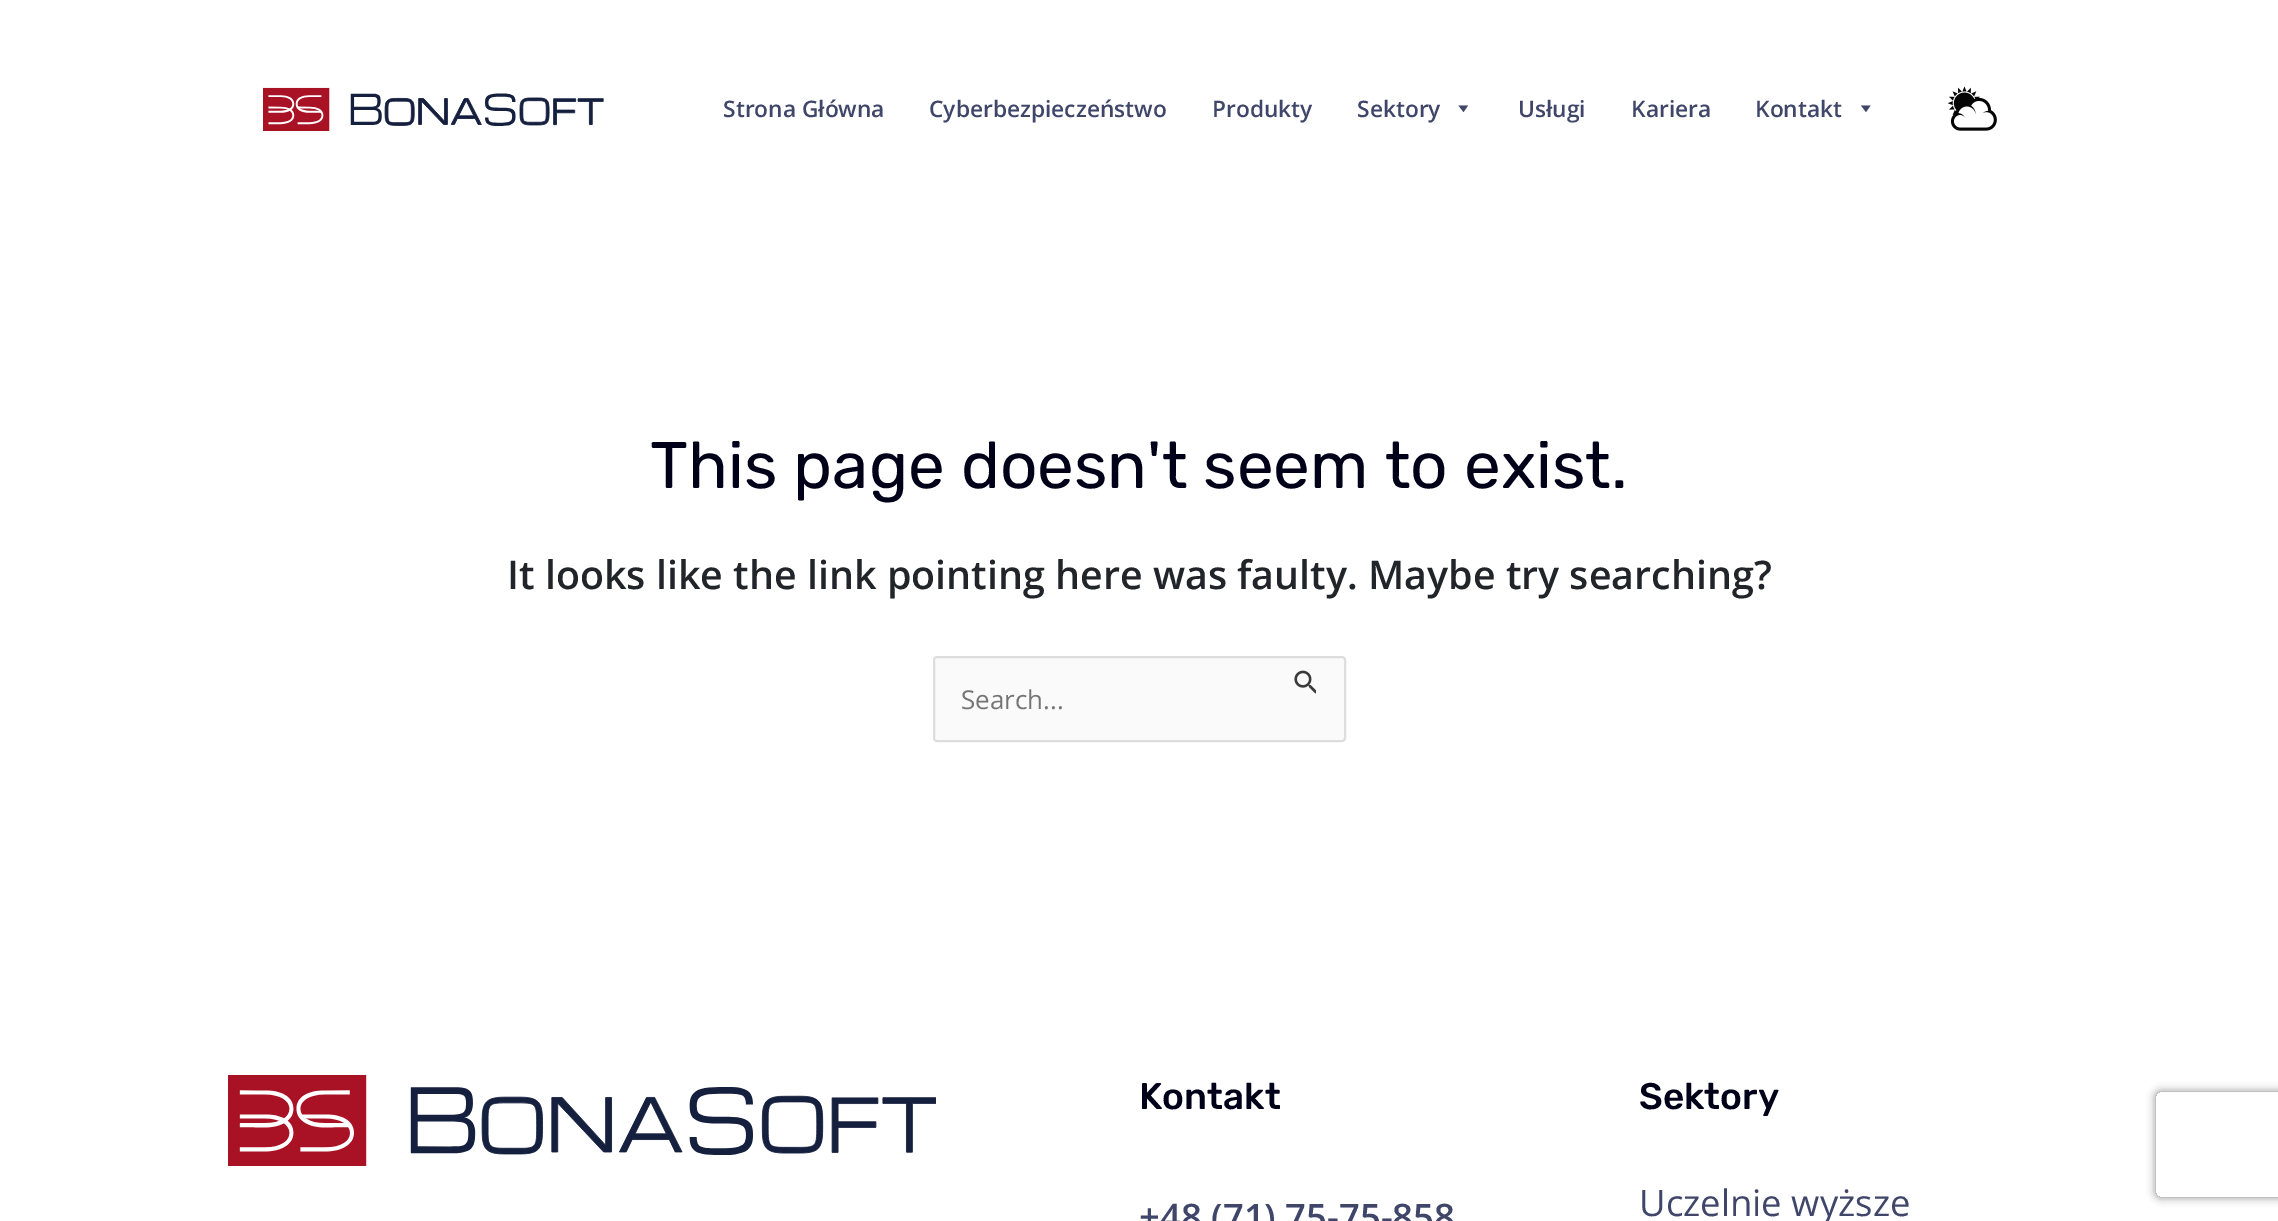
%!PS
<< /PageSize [2278 1221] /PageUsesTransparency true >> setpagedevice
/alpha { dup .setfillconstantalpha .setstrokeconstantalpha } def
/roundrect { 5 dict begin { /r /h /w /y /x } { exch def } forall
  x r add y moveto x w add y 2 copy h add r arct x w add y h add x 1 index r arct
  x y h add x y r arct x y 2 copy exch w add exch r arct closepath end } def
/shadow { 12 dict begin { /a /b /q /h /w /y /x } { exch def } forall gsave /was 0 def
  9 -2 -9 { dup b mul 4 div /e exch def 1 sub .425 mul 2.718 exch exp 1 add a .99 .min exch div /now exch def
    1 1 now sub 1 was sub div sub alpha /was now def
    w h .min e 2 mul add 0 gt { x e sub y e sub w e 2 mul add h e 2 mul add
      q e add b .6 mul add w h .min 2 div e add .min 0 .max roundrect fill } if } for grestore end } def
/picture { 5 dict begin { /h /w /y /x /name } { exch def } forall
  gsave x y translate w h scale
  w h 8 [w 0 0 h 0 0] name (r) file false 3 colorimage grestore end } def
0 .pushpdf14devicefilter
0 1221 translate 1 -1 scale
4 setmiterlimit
1 setgray
0 0 2278 1221 rectfill
(img1.rgb) 263 87 341 44 picture
/OpenSans-SemiBold [22.75 0 0 -22.75 0 0] selectfont
0.247 0.275 0.412 setrgbcolor
723 117 moveto (Strona Główna) show
929 117 moveto (Cyberbezpieczeństwo) show
1212 117 moveto (Produkty) show
1357 117 moveto (Sektory) show
newpath 1468 105.5 moveto 1463.5 112 lineto 1458.5 105.5 lineto closepath fill
1518 117 moveto (Usługi) show
1631 117 moveto (Kariera) show
1755 117 moveto (Kontakt) show
newpath 1870.5 105.5 moveto 1866 112 lineto 1861 105.5 lineto closepath fill
(img2.rgb) 1947 86 50 45 picture
/Rubik-Regular [65.6 0 0 -65.6 0 0] selectfont
0 0 0.098 setrgbcolor
650 488 moveto (This page doesn't seem to exist.) show
/OpenSans-SemiBold [39.4 0 0 -39.4 0 0] selectfont
0.129 0.145 0.161 setrgbcolor
507 589 moveto (It looks like the link pointing here was faulty. Maybe try searching?) show
0.98 setgray
934 657 411 84 3 roundrect gsave fill grestore
0.867 setgray
2 setlinewidth
stroke
(img3.rgb) 1294 670 22 24 picture
/OpenSans-Regular [26 0 0 -26 0 0] selectfont
0.459 setgray
961 709 moveto (Search...) show
(img4.rgb) 228 1075 708 91 picture
/Rubik-Medium [37 0 0 -37 0 0] selectfont
0 0 0.098 setrgbcolor
1139 1109 moveto (Kontakt) show
/OpenSans-SemiBold [36.5 0 0 -36.5 0 0] selectfont
0.247 0.275 0.412 setrgbcolor
1139 1230 moveto (+48 \(71\) 75-75-858) show
/Rubik-Medium [37 0 0 -37 0 0] selectfont
0 0 0.098 setrgbcolor
1639 1109 moveto (Sektory) show
/OpenSans-Regular [36.5 0 0 -36.5 0 0] selectfont
0.247 0.275 0.412 setrgbcolor
1639 1216 moveto (Uczelnie wyższe) show
gsave
newpath 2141 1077 moveto 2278 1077 lineto 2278 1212 lineto 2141 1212 lineto closepath 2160 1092 moveto 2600 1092 lineto 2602 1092 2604 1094 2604 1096 curveto 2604 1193 lineto 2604 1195 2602 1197 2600 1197 curveto 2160 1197 lineto 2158 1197 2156 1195 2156 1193 curveto 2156 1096 lineto 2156 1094 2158 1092 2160 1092 curveto closepath eoclip newpath
0.502 setgray
2156 1092 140 105 4 4.5 1 shadow
grestore
.poppdf14devicefilter showpage
